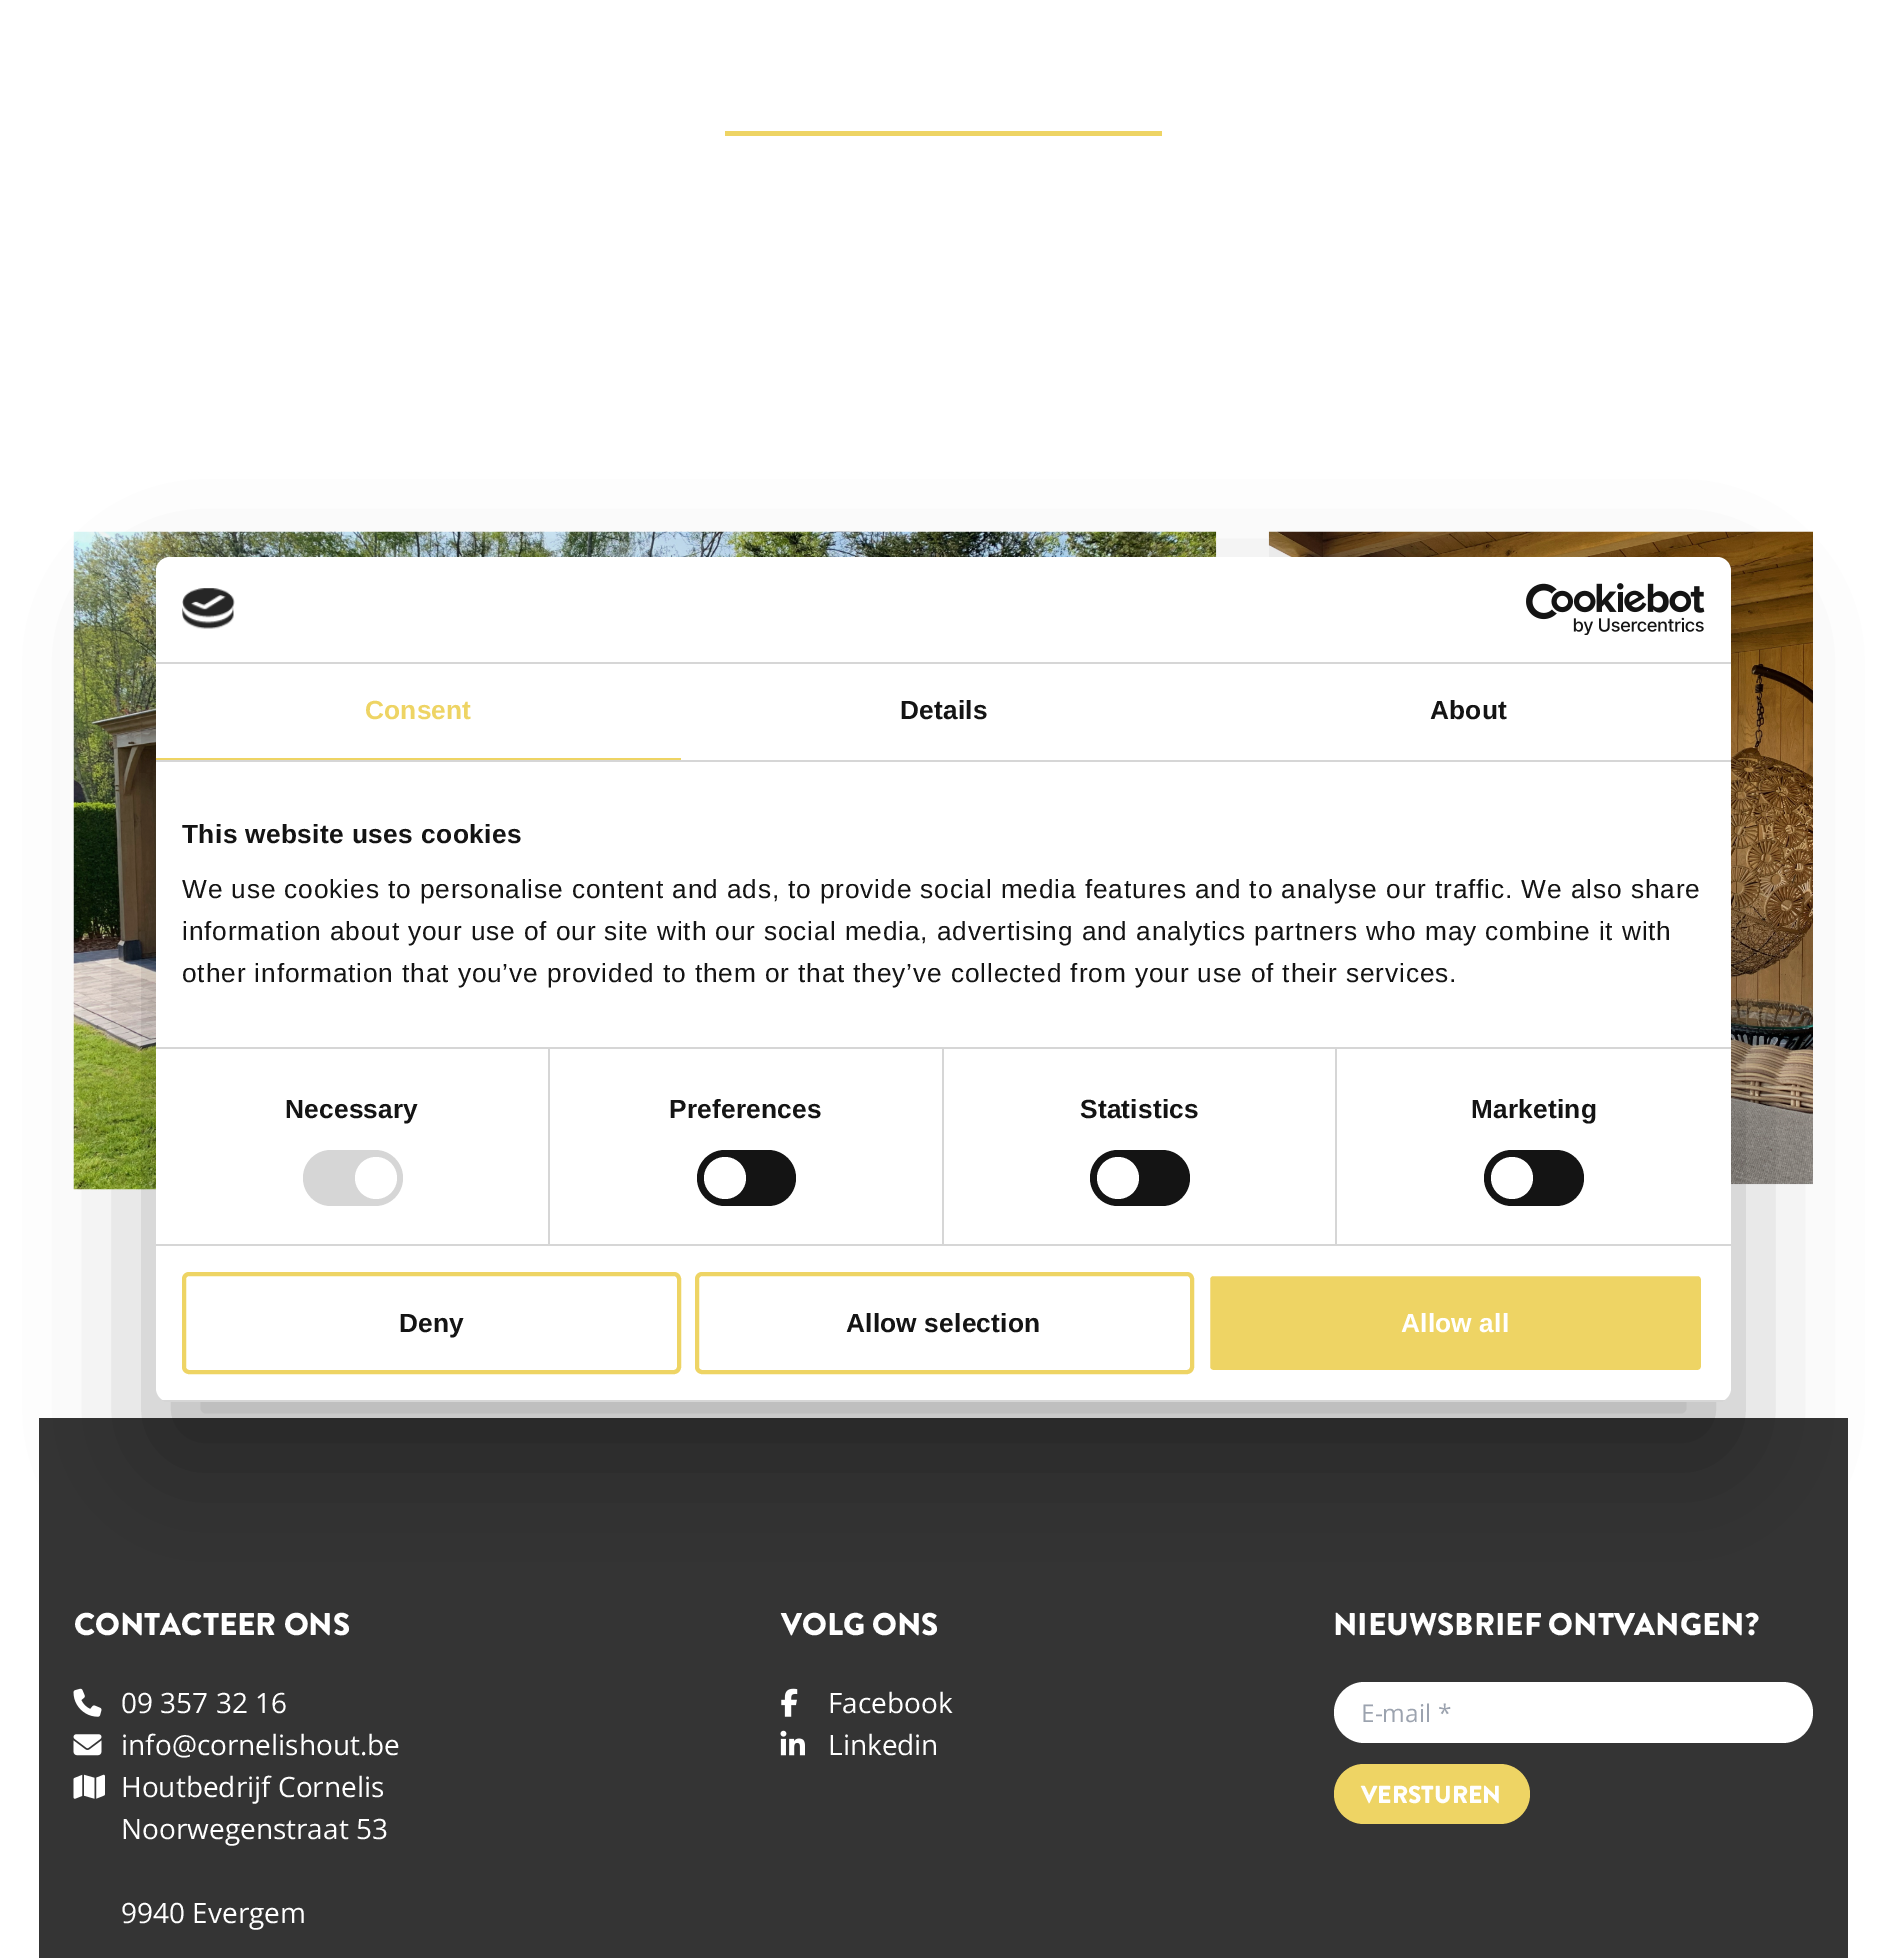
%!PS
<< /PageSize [1885 1958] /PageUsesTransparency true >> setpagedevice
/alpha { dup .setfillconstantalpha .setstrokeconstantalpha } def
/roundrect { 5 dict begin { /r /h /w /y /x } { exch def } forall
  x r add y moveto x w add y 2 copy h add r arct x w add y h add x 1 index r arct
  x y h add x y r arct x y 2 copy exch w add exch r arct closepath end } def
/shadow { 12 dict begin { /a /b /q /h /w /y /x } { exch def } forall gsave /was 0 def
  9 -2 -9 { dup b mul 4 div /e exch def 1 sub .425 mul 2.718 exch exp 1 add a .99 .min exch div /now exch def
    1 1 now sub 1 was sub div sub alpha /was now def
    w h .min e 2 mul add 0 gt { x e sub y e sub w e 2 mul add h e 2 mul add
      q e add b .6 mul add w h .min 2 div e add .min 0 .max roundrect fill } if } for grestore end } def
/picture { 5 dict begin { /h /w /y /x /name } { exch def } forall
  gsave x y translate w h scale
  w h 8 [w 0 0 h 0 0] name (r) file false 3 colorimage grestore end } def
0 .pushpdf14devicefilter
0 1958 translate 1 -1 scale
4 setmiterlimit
1 setgray
0 0 1885 1958 rectfill
(img3.rgb) 73 531 1144 659 picture
(img4.rgb) 1268 531 545 654 picture
0.204 setgray
39 1418 1809 540 rectfill
0 setgray
156 613 1575 845 14 59.5 0.3 shadow
1 setgray
156 557 1575 845 14 roundrect fill
0.839 setgray
156 662 1575 2 rectfill
(img1.rgb) 182 588 53 41 picture
(img2.rgb) 1526 583 179 52 picture
156 760 1575 2 rectfill
0.933 0.831 0.392 setrgbcolor
156 758 525 2 rectfill
/LiberationSans-Bold [26.25 0 0 -26.25 0 0] selectfont
365 719 moveto 0.2 0 (Consent) ashow
0.078 setgray
900 719 moveto 0.2 0 (Details) ashow
1430 719 moveto 0.2 0 (About) ashow
0.839 setgray
548 1048 2 196 rectfill
942 1048 2 196 rectfill
1335 1048 2 196 rectfill
156 1047 1575 2 rectfill
0.078 setgray
182 843 moveto 0.4 0 (This website uses cookies) ashow
/LiberationSans-Regular [26.25 0 0 -26.25 0 0] selectfont
182 898 moveto 0.88 0 (We use cookies to personalise content and ads, to provide social media features and to analyse our traffic. We also share) ashow
182 940 moveto 0.88 0 (information about your use of our site with our social media, advertising and analytics partners who may combine it with) ashow
182 982 moveto 0.88 0 (other information that you’ve provided to them or that they’ve collected from your use of their services.) ashow
0.839 setgray
156 1244 1575 2 rectfill
/LiberationSans-Bold [26.25 0 0 -26.25 0 0] selectfont
0.078 setgray
285 1118 moveto 0.2 0 (Necessary) ashow
0.839 setgray
303 1150 100 56 28 roundrect fill
1 setgray
newpath 376 1178 21 0 360 arc closepath fill
0.078 setgray
669 1118 moveto 0.2 0 (Preferences) ashow
697 1150 99 56 28 roundrect fill
1 setgray
newpath 725 1178 21 0 360 arc closepath fill
0.078 setgray
1080 1118 moveto 0.2 0 (Statistics) ashow
1090 1150 100 56 28 roundrect fill
1 setgray
newpath 1118 1178 21 0 360 arc closepath fill
0.078 setgray
1471 1118 moveto 0.2 0 (Marketing) ashow
1484 1150 100 56 28 roundrect fill
1 setgray
newpath 1512 1178 21 0 360 arc closepath fill
gsave
156 557 1575 845 14 roundrect clip newpath
0.839 setgray
156 1400 1575 2 rectfill
grestore
0.933 0.831 0.392 setrgbcolor
4 setlinewidth
184 1274 495 98 5 roundrect stroke
0.078 setgray
399 1332 moveto 0.2 0 (Deny) ashow
0.933 0.831 0.392 setrgbcolor
697 1274 495 98 5 roundrect stroke
0.078 setgray
846 1332 moveto 0.2 0 (Allow selection) ashow
0.933 0.831 0.392 setrgbcolor
1208 1274 495 98 5 roundrect gsave fill grestore
1 setgray
stroke
1401 1332 moveto 0.2 0 (Allow all) ashow
0.933 0.831 0.392 setrgbcolor
725 131 437 5 rectfill
/BrandonGrotesque-Black [31.5 0 0 -31.5 0 0] selectfont
1 setgray
74 1635 moveto (CONTACTEER ONS) show
(img5.rgb) 73 1688 29 29 picture
/OpenSans-Regular [28 0 0 -28 0 0] selectfont
121 1713 moveto (09 357 32 16) show
(img6.rgb) 73 1734 29 22 picture
121 1755 moveto (info@cornelishout.be) show
(img7.rgb) 73 1774 32 25 picture
121 1797 moveto (Houtbedrijf Cornelis) show
121 1839 moveto (Noorwegenstraat 53) show
121 1923 moveto (9940 Evergem) show
/BrandonGrotesque-Black [31.5 0 0 -31.5 0 0] selectfont
781 1635 moveto (VOLG ONS) show
(img8.rgb) 781 1688 17 29 picture
/OpenSans-Regular [28 0 0 -28 0 0] selectfont
828 1713 moveto (Facebook) show
(img9.rgb) 780 1730 25 26 picture
828 1755 moveto (Linkedin) show
/BrandonGrotesque-Black [31.5 0 0 -31.5 0 0] selectfont
1333 1635 moveto (NIEUWSBRIEF ONTVANGEN?) show
1334 1682 479 61 30.5 roundrect fill
/OpenSans-Regular [24.5 0 0 -24.5 0 0] selectfont
0.612 0.639 0.686 setrgbcolor
1361 1722 moveto (E-mail *) show
0.933 0.831 0.392 setrgbcolor
1334 1764 196 60 30 roundrect fill
/BrandonGrotesque-Black [24.5 0 0 -24.5 0 0] selectfont
1 setgray
1361 1803 moveto (VERSTUREN) show
.poppdf14devicefilter showpage
